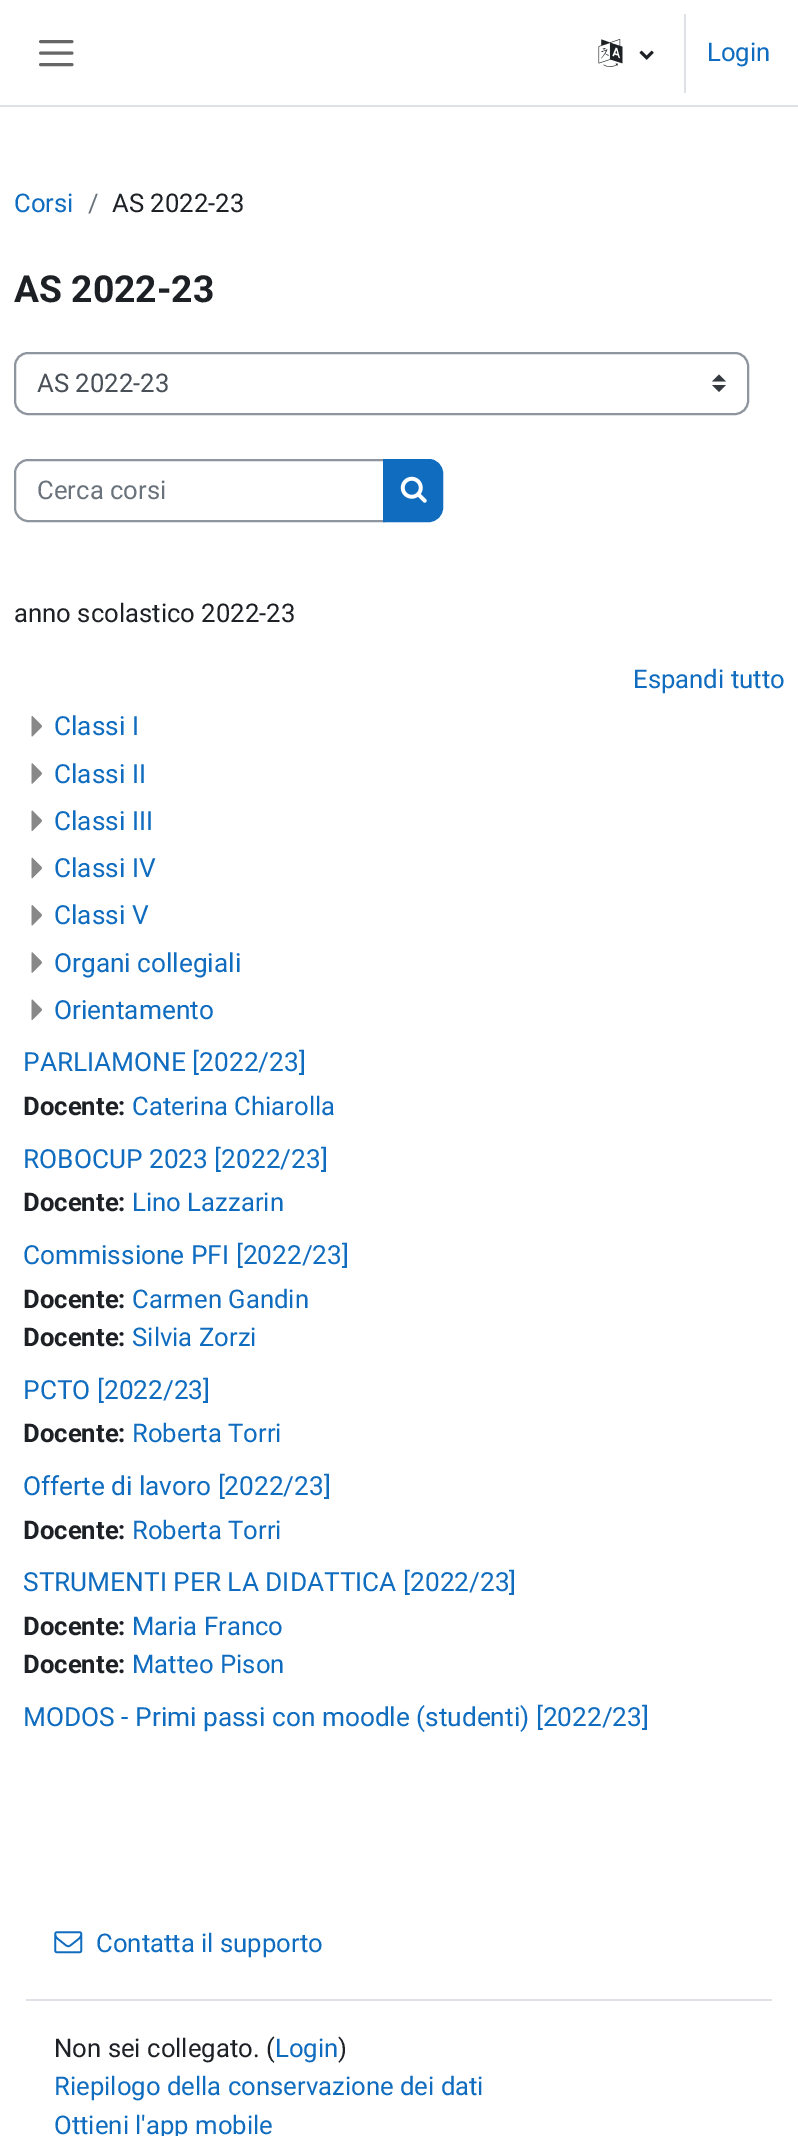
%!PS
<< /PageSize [798 2136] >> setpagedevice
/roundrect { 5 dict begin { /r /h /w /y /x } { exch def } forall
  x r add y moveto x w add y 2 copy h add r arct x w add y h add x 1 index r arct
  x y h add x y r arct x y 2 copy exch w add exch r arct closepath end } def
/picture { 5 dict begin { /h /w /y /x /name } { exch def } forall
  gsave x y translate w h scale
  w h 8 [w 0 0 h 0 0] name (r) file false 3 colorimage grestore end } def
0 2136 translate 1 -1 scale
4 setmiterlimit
1 setgray
0 0 798 2136 rectfill
0.871 0.886 0.902 setrgbcolor
0 105 798 2 rectfill
0.4 setgray
2.9 setlinewidth
1 setlinecap
newpath 40.5 41.5 moveto 72 41.5 lineto 40.5 53 moveto 72 53 lineto 40.5 64.5 moveto 72 64.5 lineto stroke
(img1.rgb) 598 39 25 28 picture
(img2.rgb) 639 50 15 10 picture
0.871 0.886 0.902 setrgbcolor
684 14 2 79 rectfill
/Roboto-Regular [25.7 0 0 -25.7 0 0] selectfont
0.059 0.424 0.749 setrgbcolor
707 61 moveto (Login) show
14 212 moveto (Corsi) show
0.416 0.451 0.482 setrgbcolor
88 212 moveto (/) show
0.114 0.129 0.145 setrgbcolor
112 212 moveto (AS 2022-23) show
/Roboto-Bold [37.25 0 0 -37.25 0 0] selectfont
14 302 moveto (AS 2022-23) show
0.204 0.227 0.251 setrgbcolor
newpath 719 374.5 moveto 712 381.5 lineto 726 381.5 lineto closepath 719 392 moveto 712 385 lineto 726 385 lineto closepath fill
0.561 0.584 0.62 setrgbcolor
2 setlinewidth
0 setlinecap
15 353 733 61 13 roundrect stroke
/Roboto-Regular [25.7 0 0 -25.7 0 0] selectfont
0.286 0.314 0.341 setrgbcolor
37 392 moveto (AS 2022-23) show
0.561 0.584 0.62 setrgbcolor
newpath 28 460 moveto 384 460 lineto 384 521 lineto 28 521 lineto 21 521 15 515 15 508 curveto 15 473 lineto 15 466 21 460 28 460 curveto closepath stroke
0.416 0.451 0.482 setrgbcolor
37 499 moveto (Cerca corsi) show
0.059 0.424 0.749 setrgbcolor
newpath 384 460 moveto 429 460 lineto 436 460 442 466 442 473 curveto 442 508 lineto 442 515 436 521 429 521 curveto 384 521 lineto closepath gsave fill grestore
stroke
(img3.rgb) 400 476 27 27 picture
0.114 0.129 0.145 setrgbcolor
14 622 moveto (anno scolastico 2022-23) show
0.059 0.424 0.749 setrgbcolor
633 688 moveto (Espandi tutto) show
(img4.rgb) 31 716 11 21 picture
/Roboto-Regular [26.25 0 0 -26.25 0 0] selectfont
54 735 moveto (Classi I) show
(img5.rgb) 31 763 11 21 picture
54 783 moveto (Classi II) show
(img6.rgb) 31 810 11 21 picture
54 830 moveto (Classi III) show
(img7.rgb) 31 857 11 22 picture
54 877 moveto (Classi IV) show
(img4.rgb) 31 905 11 21 picture
54 924 moveto (Classi V) show
(img5.rgb) 31 952 11 21 picture
54 972 moveto (Organi collegiali) show
(img8.rgb) 31 999 11 21 picture
54 1019 moveto (Orientamento) show
23 1071 moveto (PARLIAMONE [2022/23]) show
/Roboto-Bold [25.7 0 0 -25.7 0 0] selectfont
0.114 0.129 0.145 setrgbcolor
23 1115 moveto (Docente:) show
/Roboto-Regular [25.7 0 0 -25.7 0 0] selectfont
0.059 0.424 0.749 setrgbcolor
132 1115 moveto (Caterina Chiarolla) show
/Roboto-Regular [26.25 0 0 -26.25 0 0] selectfont
23 1168 moveto (ROBOCUP 2023 [2022/23]) show
/Roboto-Bold [25.7 0 0 -25.7 0 0] selectfont
0.114 0.129 0.145 setrgbcolor
23 1211 moveto (Docente:) show
/Roboto-Regular [25.7 0 0 -25.7 0 0] selectfont
0.059 0.424 0.749 setrgbcolor
132 1211 moveto (Lino Lazzarin) show
/Roboto-Regular [26.25 0 0 -26.25 0 0] selectfont
23 1264 moveto (Commissione PFI [2022/23]) show
/Roboto-Bold [25.7 0 0 -25.7 0 0] selectfont
0.114 0.129 0.145 setrgbcolor
23 1308 moveto (Docente:) show
/Roboto-Regular [25.7 0 0 -25.7 0 0] selectfont
0.059 0.424 0.749 setrgbcolor
132 1308 moveto (Carmen Gandin) show
/Roboto-Bold [25.7 0 0 -25.7 0 0] selectfont
0.114 0.129 0.145 setrgbcolor
23 1346 moveto (Docente:) show
/Roboto-Regular [25.7 0 0 -25.7 0 0] selectfont
0.059 0.424 0.749 setrgbcolor
132 1346 moveto (Silvia Zorzi) show
/Roboto-Regular [26.25 0 0 -26.25 0 0] selectfont
23 1399 moveto (PCTO [2022/23]) show
/Roboto-Bold [25.7 0 0 -25.7 0 0] selectfont
0.114 0.129 0.145 setrgbcolor
23 1442 moveto (Docente:) show
/Roboto-Regular [25.7 0 0 -25.7 0 0] selectfont
0.059 0.424 0.749 setrgbcolor
132 1442 moveto (Roberta Torri) show
/Roboto-Regular [26.25 0 0 -26.25 0 0] selectfont
23 1495 moveto (Offerte di lavoro [2022/23]) show
/Roboto-Bold [25.7 0 0 -25.7 0 0] selectfont
0.114 0.129 0.145 setrgbcolor
23 1539 moveto (Docente:) show
/Roboto-Regular [25.7 0 0 -25.7 0 0] selectfont
0.059 0.424 0.749 setrgbcolor
132 1539 moveto (Roberta Torri) show
/Roboto-Regular [26.25 0 0 -26.25 0 0] selectfont
23 1591 moveto (STRUMENTI PER LA DIDATTICA [2022/23]) show
/Roboto-Bold [25.7 0 0 -25.7 0 0] selectfont
0.114 0.129 0.145 setrgbcolor
23 1635 moveto (Docente:) show
/Roboto-Regular [25.7 0 0 -25.7 0 0] selectfont
0.059 0.424 0.749 setrgbcolor
132 1635 moveto (Maria Franco) show
/Roboto-Bold [25.7 0 0 -25.7 0 0] selectfont
0.114 0.129 0.145 setrgbcolor
23 1673 moveto (Docente:) show
/Roboto-Regular [25.7 0 0 -25.7 0 0] selectfont
0.059 0.424 0.749 setrgbcolor
132 1673 moveto (Matteo Pison) show
/Roboto-Regular [26.25 0 0 -26.25 0 0] selectfont
23 1726 moveto (MODOS - Primi passi con moodle \(studenti\) [2022/23]) show
0.871 0.886 0.902 setrgbcolor
26 1999 746 2 rectfill
(img9.rgb) 54 1931 29 23 picture
/Roboto-Regular [25.7 0 0 -25.7 0 0] selectfont
0.059 0.424 0.749 setrgbcolor
96 1952 moveto (Contatta il supporto) show
0.114 0.129 0.145 setrgbcolor
54 2057 moveto (Non sei collegato. \() show
0.059 0.424 0.749 setrgbcolor
275 2057 moveto (Login) show
0.114 0.129 0.145 setrgbcolor
338 2057 moveto (\)) show
0.059 0.424 0.749 setrgbcolor
54 2095 moveto (Riepilogo della conservazione dei dati) show
54 2134 moveto (Ottieni l'app mobile) show
showpage
